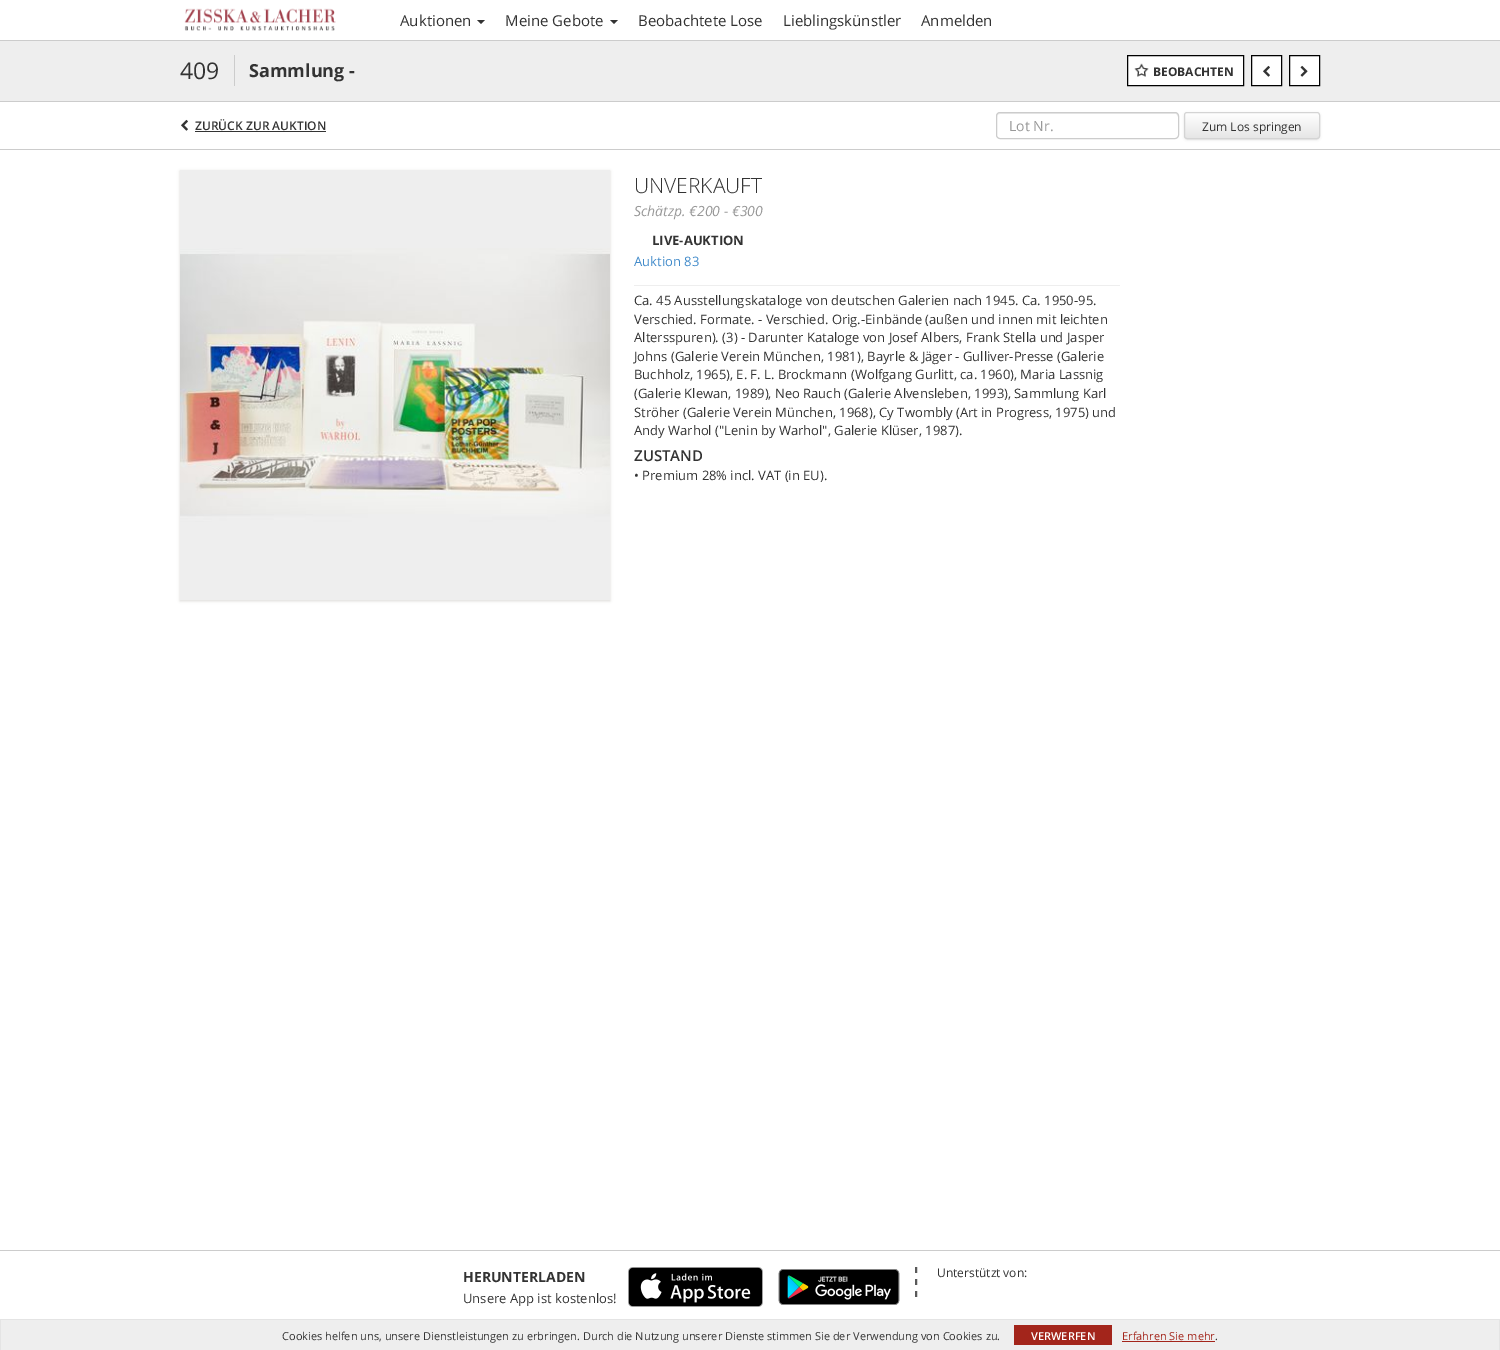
%!PS
<< /PageSize [1500 1350] /PageUsesTransparency true >> setpagedevice
/alpha { dup .setfillconstantalpha .setstrokeconstantalpha } def
/roundrect { 5 dict begin { /r /h /w /y /x } { exch def } forall
  x r add y moveto x w add y 2 copy h add r arct x w add y h add x 1 index r arct
  x y h add x y r arct x y 2 copy exch w add exch r arct closepath end } def
/shadow { 12 dict begin { /a /b /q /h /w /y /x } { exch def } forall gsave /was 0 def
  9 -2 -9 { dup b mul 4 div /e exch def 1 sub .425 mul 2.718 exch exp 1 add a .99 .min exch div /now exch def
    1 1 now sub 1 was sub div sub alpha /was now def
    w h .min e 2 mul add 0 gt { x e sub y e sub w e 2 mul add h e 2 mul add
      q e add b .6 mul add w h .min 2 div e add .min 0 .max roundrect fill } if } for grestore end } def
/picture { 5 dict begin { /h /w /y /x /name } { exch def } forall
  gsave x y translate w h scale
  w h 8 [w 0 0 h 0 0] name (r) file false 3 colorimage grestore end } def
0 .pushpdf14devicefilter
0 1350 translate 1 -1 scale
4 setmiterlimit
1 setgray
0 0 1500 1350 rectfill
(img1.rgb) 184 8 152 23 picture
/OpenSans-Regular [15 0 0 -15 0 0] selectfont
0.2 setgray
400 26 moveto (Auktionen) show
newpath 477 20 moveto 485 20 lineto 481 24 lineto closepath fill
505 26 moveto (Meine Gebote) show
newpath 610 20 moveto 618 20 lineto 614 24 lineto closepath fill
638 26 moveto (Beobachtete Lose) show
783 26 moveto (Lieblingskünstler) show
921 26 moveto (Anmelden) show
0.8 setgray
0 40 1500 1 rectfill
0.933 setgray
0 41 1500 60 rectfill
0.8 setgray
0 101 1500 1 rectfill
/OpenSans-Regular [23 0 0 -23 0 0] selectfont
0.2 setgray
180 79 moveto (409) show
0.8 setgray
234 55 1 31 rectfill
/OpenSans-Bold [18 0 0 -18 0 0] selectfont
0.2 setgray
249 77 moveto (Sammlung -) show
1 setgray
newpath 1127.5 55.5 moveto 1243.5 55.5 lineto 1243.5 85.5 lineto 1127.5 85.5 lineto closepath gsave fill grestore
0 setgray
stroke
(img2.rgb) 1134 63 15 14 picture
/OpenSans-Bold [12 0 0 -12 0 0] selectfont
0.2 setgray
1153 76 moveto (BEOBACHTEN) show
1 setgray
newpath 1251.5 55.5 moveto 1281.5 55.5 lineto 1281.5 85.5 lineto 1251.5 85.5 lineto closepath gsave fill grestore
0 setgray
stroke
(img3.rgb) 1263 65 7 12 picture
1 setgray
newpath 1289.5 55.5 moveto 1319.5 55.5 lineto 1319.5 85.5 lineto 1289.5 85.5 lineto closepath gsave fill grestore
0 setgray
stroke
(img4.rgb) 1300 65 8 12 picture
(img3.rgb) 181 119 7 12 picture
/OpenSans-SemiBold [12 0 0 -12 0 0] selectfont
0.2 setgray
195 130 moveto (ZURÜCK ZUR AUKTION) show
195 131 131 1 rectfill
0.925 setgray
newpath 1000 114 moveto 1176 114 lineto 1177 115 lineto 1178 117 lineto 1178 116 lineto 1178 114 1177 113 1175 113 curveto 1000 113 lineto 998 113 997 114 997 116 curveto 997 117 lineto 997 115 998 114 1000 114 curveto closepath fill
0.8 setgray
996.5 112.5 182 26 3.5 roundrect stroke
/OpenSans-Regular [14 0 0 -14 0 0] selectfont
0.6 setgray
1009 131 moveto (Lot Nr.) show
0 setgray
1185 114 134 25 2 1.5 0.2 shadow
gsave
1184 112 136 27 3 roundrect clip newpath
gsave newpath 1184 113 moveto 1320 113 lineto 1320 138 lineto 1184 138 lineto closepath clip newpath
<< /ShadingType 2 /ColorSpace /DeviceRGB /Coords [1252 113 1252 138] /Extend [true true] /Function << /FunctionType 2 /Domain [0 1] /C0 [1 1 1] /C1 [0.902 0.902 0.902] /N 1 >> >> shfill grestore
grestore
0.831 setgray
1184.5 112.5 135 26 2.5 roundrect stroke
/OpenSans-Regular [12 0 0 -12 0 0] selectfont
0.2 setgray
1202 131 moveto (Zum Los springen) show
0.8 setgray
0 149 1500 1 rectfill
0.855 0.851 0.843 setrgbcolor
180 171 430 430 0 1.5 1 shadow
(img5.rgb) 180 170 430 430 picture
/OpenSans-Light [21 0 0 -21 0 0] selectfont
0.2 setgray
634 193 moveto (UNVERKAUFT) show
/OpenSans-Italic [14 0 0 -14 0 0] selectfont
0.6 setgray
634 216 moveto (Schätzp. €200 - €300) show
/OpenSans-Bold [13 0 0 -13 0 0] selectfont
0.2 setgray
652 245 moveto (LIVE-AUKTION) show
/OpenSans-Regular [13 0 0 -13 0 0] selectfont
0.259 0.545 0.792 setrgbcolor
634 266 moveto (Auktion 83) show
0.933 setgray
634 285 486 1 rectfill
0.2 setgray
634 305 moveto (Ca. 45 Ausstellungskataloge von deutschen Galerien nach 1945. Ca. 1950-95.) show
634 324 moveto (Verschied. Formate. - Verschied. Orig.-Einbände \(außen und innen mit leichten) show
634 342 moveto (Altersspuren\). \(3\) - Darunter Kataloge von Josef Albers, Frank Stella und Jasper) show
634 361 moveto (Johns \(Galerie Verein München, 1981\), Bayrle & Jäger - Gulliver-Presse \(Galerie) show
634 379 moveto (Buchholz, 1965\), E. F. L. Brockmann \(Wolfgang Gurlitt, ca. 1960\), Maria Lassnig) show
634 398 moveto (\(Galerie Klewan, 1989\), Neo Rauch \(Galerie Alvensleben, 1993\), Sammlung Karl) show
634 417 moveto (Ströher \(Galerie Verein München, 1968\), Cy Twombly \(Art in Progress, 1975\) und) show
634 435 moveto (Andy Warhol \("Lenin by Warhol", Galerie Klüser, 1987\).) show
/OpenSans-SemiBold [15 0 0 -15 0 0] selectfont
634 461 moveto (ZUSTAND) show
/OpenSans-Regular [13 0 0 -13 0 0] selectfont
634 480 moveto (• Premium 28% incl. VAT \(in EU\).) show
0.8 setgray
0 1250 1500 1 rectfill
/OpenSans-Bold [14 0 0 -14 0 0] selectfont
0.2 setgray
463 1282 moveto (HERUNTERLADEN) show
/OpenSans-Regular [13 0 0 -13 0 0] selectfont
463 1303 moveto (Unsere App ist kostenlos!) show
(img6.rgb) 628 1267 135 40 picture
(img7.rgb) 778 1269 122 36 picture
0.349 setgray
2 setlinewidth
newpath 916 1267 moveto 916 1273 lineto 916 1279 moveto 916 1285 lineto 916 1291 moveto 916 1297 lineto stroke
/OpenSans-Regular [12 0 0 -12 0 0] selectfont
0.2 setgray
937 1277 moveto (Unterstützt von:) show
0.933 setgray
1 1320 1498 30 rectfill
0.894 setgray
0 1319 1500 1 rectfill
1499 1319 1 31 rectfill
0 1319 1 31 rectfill
/OpenSans-Regular [11 0 0 -11 0 0] selectfont
0.2 setgray
282 1340 moveto (Cookies helfen uns, unsere Dienstleistungen zu erbringen. Durch die Nutzung unserer Dienste stimmen Sie der Verwendung von Cookies zu.) show
0.639 0.145 0.106 setrgbcolor
1014 1325 98 20 rectfill
/OpenSans-SemiBold [11 0 0 -11 0 0] selectfont
1 setgray
1031 1340 moveto (VERWERFEN) show
/OpenSans-Regular [11 0 0 -11 0 0] selectfont
0.639 0.145 0.106 setrgbcolor
1122 1340 moveto (Erfahren Sie mehr) show
1122 1341 93 1 rectfill
0.2 setgray
1215 1340 moveto (.) show
.poppdf14devicefilter showpage
